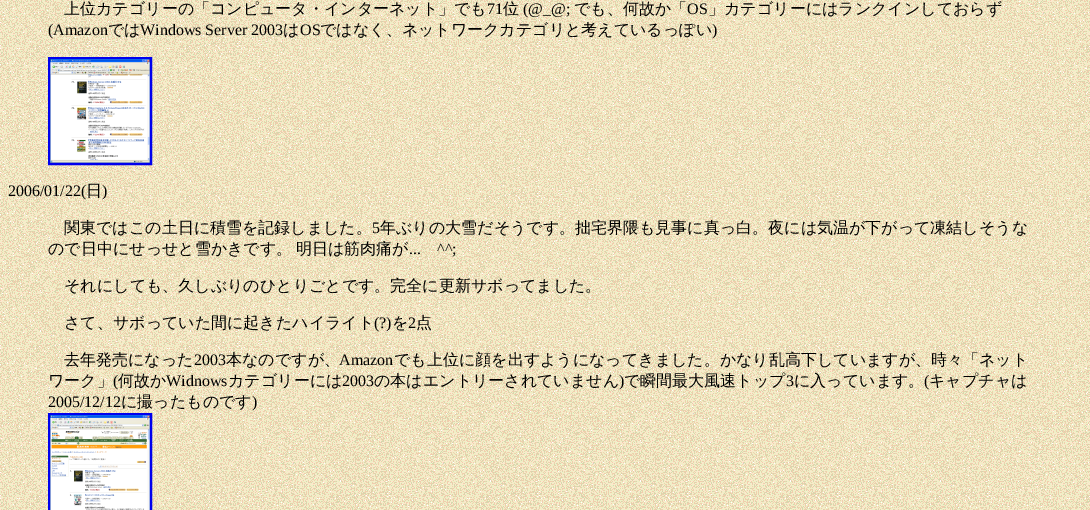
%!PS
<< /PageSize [1090 510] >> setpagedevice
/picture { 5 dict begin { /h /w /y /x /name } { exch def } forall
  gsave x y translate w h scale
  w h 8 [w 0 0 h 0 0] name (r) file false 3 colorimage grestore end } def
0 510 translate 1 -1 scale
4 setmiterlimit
1 setgray
0 0 1090 510 rectfill
(img1.rgb) 0 0 1090 510 picture
/WenQuanYiZenHei-Medium [16 0 0 -16 0 0] selectfont
0 setgray
64 14 moveto (上位カテゴリーの「コンピュータ・インターネット」でも) show
/LiberationSerif-Regular [16 0 0 -16 0 0] selectfont
487 14 moveto (71) show
/WenQuanYiZenHei-Medium [16 0 0 -16 0 0] selectfont
503 14 moveto (位) show
/LiberationSerif-Regular [16 0 0 -16 0 0] selectfont
523 14 moveto (\(@_@;) show
/WenQuanYiZenHei-Medium [16 0 0 -16 0 0] selectfont
574 14 moveto (でも、何故か「) show
/LiberationSerif-Regular [16 0 0 -16 0 0] selectfont
687 14 moveto (OS) show
/WenQuanYiZenHei-Medium [16 0 0 -16 0 0] selectfont
708 14 moveto (」カテゴリーにはランクインしておらず) show
/LiberationSerif-Regular [16 0 0 -16 0 0] selectfont
48 35 moveto (\(Amazon) show
/WenQuanYiZenHei-Medium [16 0 0 -16 0 0] selectfont
108 35 moveto (では) show
/LiberationSerif-Regular [16 0 0 -16 0 0] selectfont
140 35 moveto (Windows Server 2003) show
/WenQuanYiZenHei-Medium [16 0 0 -16 0 0] selectfont
283 35 moveto (は) show
/LiberationSerif-Regular [16 0 0 -16 0 0] selectfont
300 35 moveto (OS) show
/WenQuanYiZenHei-Medium [16 0 0 -16 0 0] selectfont
320 35 moveto (ではなく、ネットワークカテゴリと考えているっぽい) show
/LiberationSerif-Regular [16 0 0 -16 0 0] selectfont
712 35 moveto (\)) show
0 0 0.933 setrgbcolor
2 setlinewidth
49 58 102 106 rectstroke
(img2.rgb) 50 59 100 104 picture
0 setgray
8 196 moveto (2006/01/22\() show
/WenQuanYiZenHei-Medium [16 0 0 -16 0 0] selectfont
86 196 moveto (日) show
/LiberationSerif-Regular [16 0 0 -16 0 0] selectfont
102 196 moveto (\)) show
/WenQuanYiZenHei-Medium [16 0 0 -16 0 0] selectfont
64 233 moveto (関東ではこの土日に積雪を記録しました。) show
/LiberationSerif-Regular [16 0 0 -16 0 0] selectfont
372 233 moveto (5) show
/WenQuanYiZenHei-Medium [16 0 0 -16 0 0] selectfont
380 233 moveto (年ぶりの大雪だそうです。拙宅界隈も見事に真っ白。夜には気温が下がって凍結しそうな) show
48 254 moveto (ので日中にせっせと雪かきです。) show
296 254 moveto (明日は筋肉痛が) show
/LiberationSerif-Regular [16 0 0 -16 0 0] selectfont
409 254 moveto (...) show
437 254 moveto (^^;) show
/WenQuanYiZenHei-Medium [16 0 0 -16 0 0] selectfont
64 291 moveto (それにしても、久しぶりのひとりごとです。完全に更新サボってました。) show
64 328 moveto (さて、サボっていた間に起きたハイライト) show
/LiberationSerif-Regular [16 0 0 -16 0 0] selectfont
374 328 moveto (\(?\)) show
/WenQuanYiZenHei-Medium [16 0 0 -16 0 0] selectfont
392 328 moveto (を) show
/LiberationSerif-Regular [16 0 0 -16 0 0] selectfont
408 328 moveto (2) show
/WenQuanYiZenHei-Medium [16 0 0 -16 0 0] selectfont
416 328 moveto (点) show
64 365 moveto (去年発売になった) show
/LiberationSerif-Regular [16 0 0 -16 0 0] selectfont
194 365 moveto (2003) show
/WenQuanYiZenHei-Medium [16 0 0 -16 0 0] selectfont
226 365 moveto (本なのですが、) show
/LiberationSerif-Regular [16 0 0 -16 0 0] selectfont
339 365 moveto (Amazon) show
/WenQuanYiZenHei-Medium [16 0 0 -16 0 0] selectfont
394 365 moveto (でも上位に顔を出すようになってきました。かなり乱高下していますが、時々「ネット) show
48 386 moveto (ワーク」) show
/LiberationSerif-Regular [16 0 0 -16 0 0] selectfont
113 386 moveto (\() show
/WenQuanYiZenHei-Medium [16 0 0 -16 0 0] selectfont
118 386 moveto (何故か) show
/LiberationSerif-Regular [16 0 0 -16 0 0] selectfont
166 386 moveto (Widnows) show
/WenQuanYiZenHei-Medium [16 0 0 -16 0 0] selectfont
228 386 moveto (カテゴリーには) show
/LiberationSerif-Regular [16 0 0 -16 0 0] selectfont
342 386 moveto (2003) show
/WenQuanYiZenHei-Medium [16 0 0 -16 0 0] selectfont
374 386 moveto (の本はエントリーされていません) show
/LiberationSerif-Regular [16 0 0 -16 0 0] selectfont
619 386 moveto (\)) show
/WenQuanYiZenHei-Medium [16 0 0 -16 0 0] selectfont
624 386 moveto (で瞬間最大風速トップ) show
/LiberationSerif-Regular [16 0 0 -16 0 0] selectfont
786 386 moveto (3) show
/WenQuanYiZenHei-Medium [16 0 0 -16 0 0] selectfont
794 386 moveto (に入っています。) show
/LiberationSerif-Regular [16 0 0 -16 0 0] selectfont
924 386 moveto (\() show
/WenQuanYiZenHei-Medium [16 0 0 -16 0 0] selectfont
929 386 moveto (キャプチャは) show
/LiberationSerif-Regular [16 0 0 -16 0 0] selectfont
48 407 moveto (2005/12/12) show
/WenQuanYiZenHei-Medium [16 0 0 -16 0 0] selectfont
121 407 moveto (に撮ったものです) show
/LiberationSerif-Regular [16 0 0 -16 0 0] selectfont
252 407 moveto (\)) show
0 0 0.933 setrgbcolor
49 414 102 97 rectstroke
(img3.rgb) 50 415 100 95 picture
showpage
